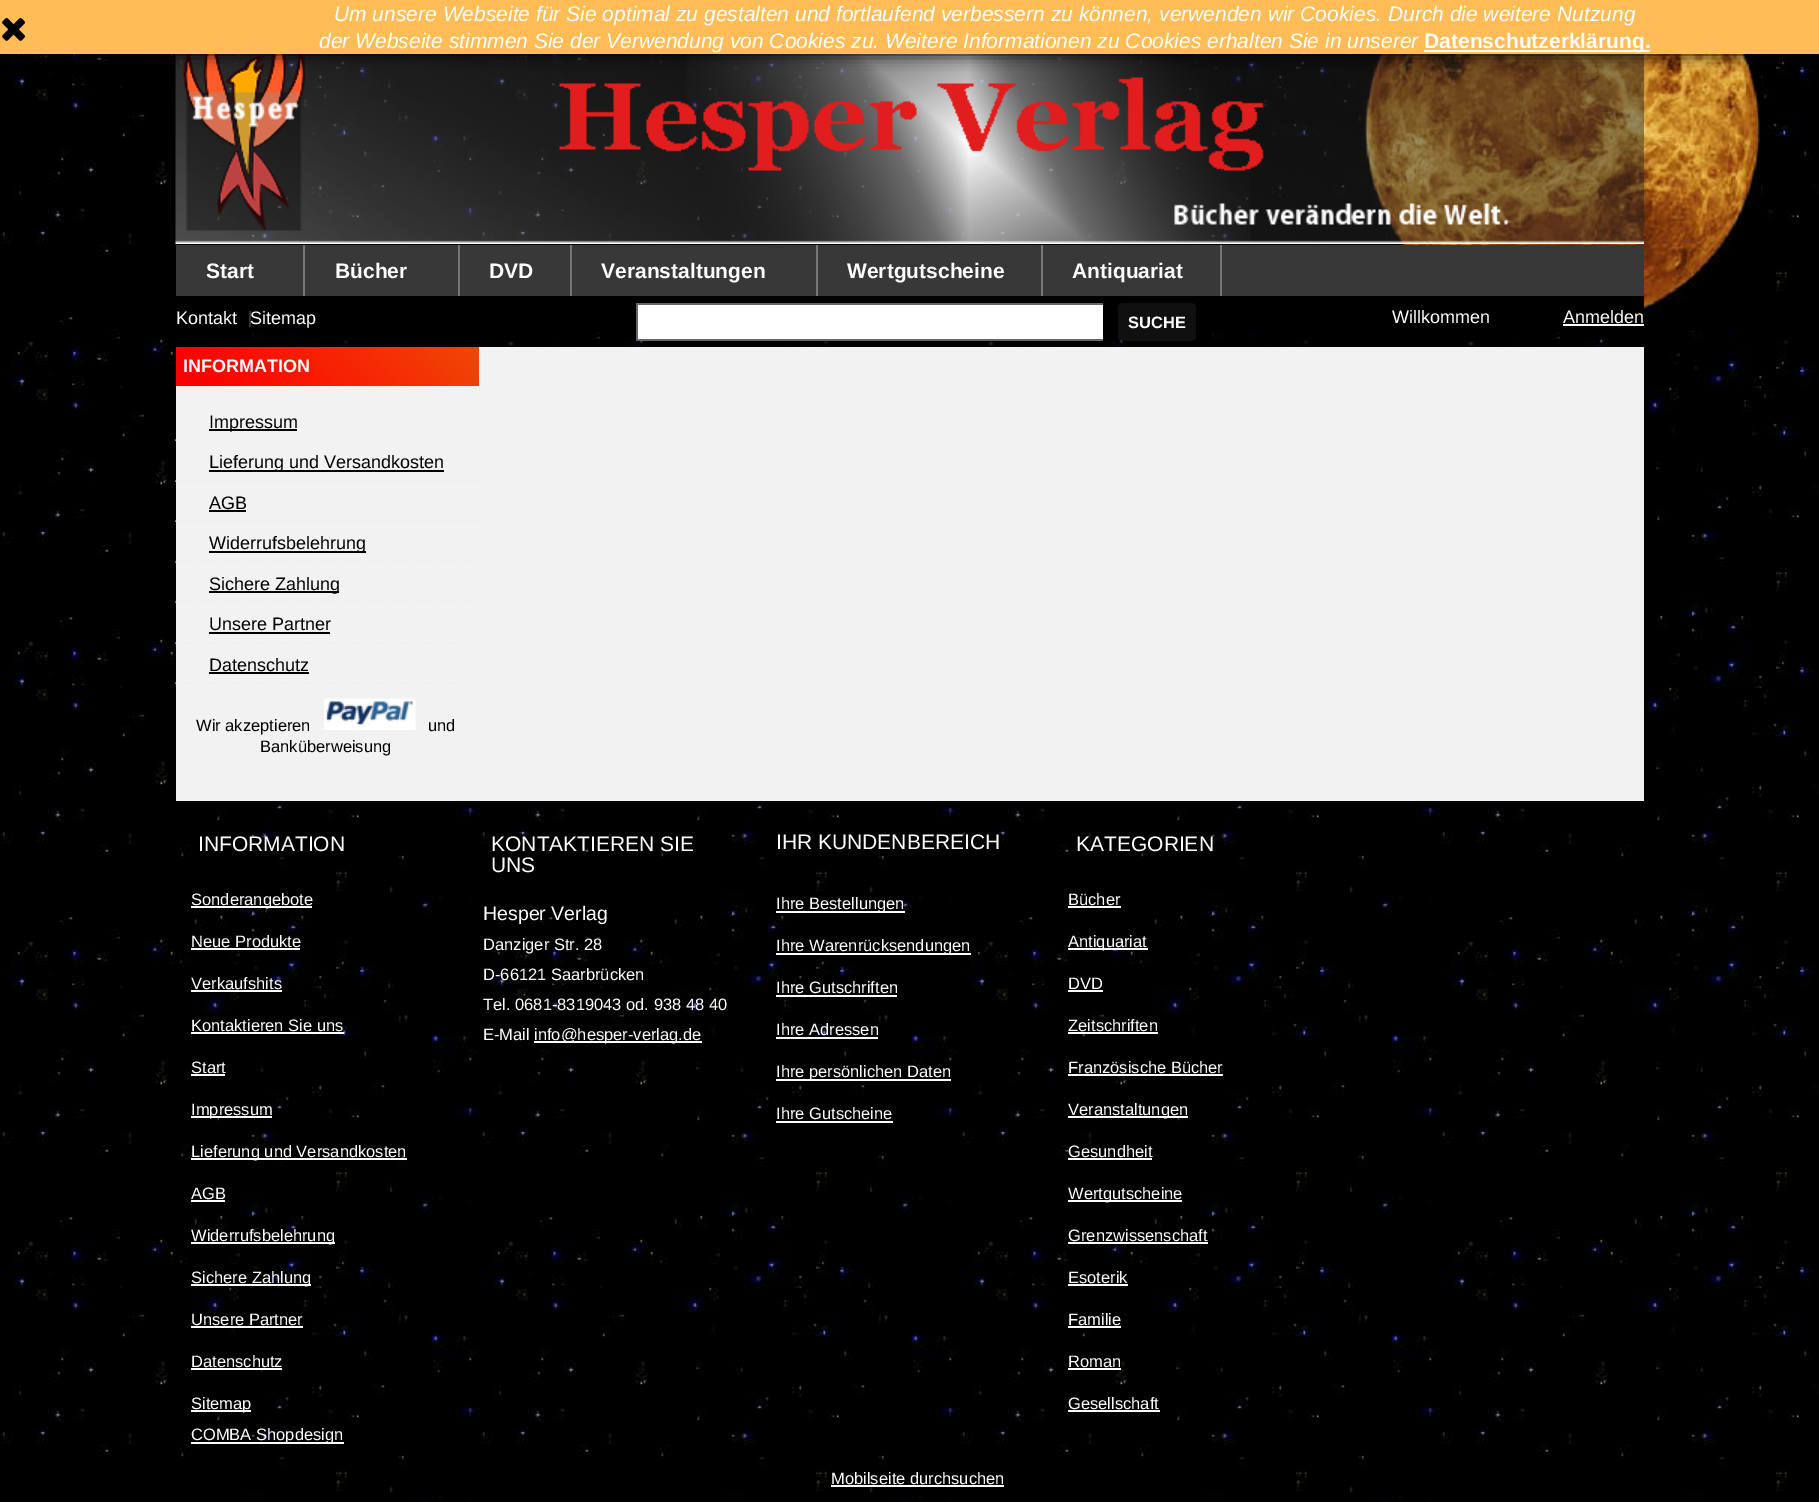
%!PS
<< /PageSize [1819 1502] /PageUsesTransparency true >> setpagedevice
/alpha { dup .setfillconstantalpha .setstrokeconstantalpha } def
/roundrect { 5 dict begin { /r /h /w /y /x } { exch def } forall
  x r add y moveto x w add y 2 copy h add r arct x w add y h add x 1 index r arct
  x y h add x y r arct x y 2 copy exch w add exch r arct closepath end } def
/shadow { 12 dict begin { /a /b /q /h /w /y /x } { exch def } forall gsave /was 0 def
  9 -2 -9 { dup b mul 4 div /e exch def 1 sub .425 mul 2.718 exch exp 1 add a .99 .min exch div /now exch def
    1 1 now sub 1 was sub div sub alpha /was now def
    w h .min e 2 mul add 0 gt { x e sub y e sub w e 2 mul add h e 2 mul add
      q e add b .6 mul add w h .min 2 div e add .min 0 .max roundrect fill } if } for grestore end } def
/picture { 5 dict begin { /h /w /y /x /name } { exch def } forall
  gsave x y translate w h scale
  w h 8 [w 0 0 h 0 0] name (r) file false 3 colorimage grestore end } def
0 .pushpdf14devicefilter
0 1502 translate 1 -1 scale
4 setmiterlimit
0 setgray
0 0 1819 1502 rectfill
(img1.rgb) 1 54 1818 1448 picture
(img4.rgb) 1360 54 401 277 picture
(img3.rgb) 175 54 1469 190 picture
0 0 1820 54 0 7.5 1 shadow
1 0.737 0.341 setrgbcolor
0 0 1819 54 rectfill
(img2.rgb) 2 18 23 23 picture
/LiberationSans-Italic [21 0 0 -21 0 0] selectfont
1 setgray
334 21 moveto (Um unsere Webseite für Sie optimal zu gestalten und fortlaufend verbessern zu können, verwenden wir Cookies. Durch die weitere Nutzung) show
319 48 moveto (der Webseite stimmen Sie der Verwendung von Cookies zu. Weitere Informationen zu Cookies erhalten Sie in unserer) show
1424 50 226 2 rectfill
/LiberationSans-Bold [21 0 0 -21 0 0] selectfont
1424 48 moveto (Datenschutzerklärung.) show
/LiberationSans-Regular [21 0 0 -21 0 0] selectfont
198 851 moveto (INFORMATION) show
191 906 121 2 rectfill
/LiberationSans-Regular [16.5 0 0 -16.5 0 0] selectfont
191 905 moveto (Sonderangebote) show
191 947 moveto (Neue Produkte) show
191 948 109 2 rectfill
191 989 moveto (Verkaufshits) show
191 990 91 2 rectfill
191 1031 moveto (Kontaktieren Sie uns) show
191 1032 153 2 rectfill
191 1073 moveto (Start) show
191 1074 34 2 rectfill
191 1116 81 2 rectfill
191 1115 moveto (Impressum) show
191 1158 216 2 rectfill
191 1157 moveto (Lieferung und Versandkosten) show
191 1199 moveto (AGB) show
191 1200 34 2 rectfill
191 1242 144 2 rectfill
191 1241 moveto (Widerrufsbelehrung) show
191 1284 120 2 rectfill
191 1283 moveto (Sichere Zahlung) show
191 1325 moveto (Unsere Partner) show
191 1326 112 2 rectfill
191 1367 moveto (Datenschutz) show
191 1368 91 2 rectfill
191 1410 60 2 rectfill
191 1409 moveto (Sitemap) show
191 1442 153 2 rectfill
191 1440 moveto (COMBA Shopdesign) show
/LiberationSans-Regular [21 0 0 -21 0 0] selectfont
491 851 moveto (KONTAKTIEREN SIE) show
491 872 moveto (UNS) show
/LiberationSans-Regular [19.5 0 0 -19.5 0 0] selectfont
483 920 moveto (Hesper Verlag) show
/LiberationSans-Regular [16.5 0 0 -16.5 0 0] selectfont
483 950 moveto (Danziger Str. 28) show
483 980 moveto (D-66121 Saarbrücken) show
483 1010 moveto (Tel. 0681-8319043 od. 938 48 40) show
483 1040 moveto (E-Mail) show
534 1041 168 2 rectfill
534 1040 moveto (info@hesper-verlag.de) show
/LiberationSans-Regular [21 0 0 -21 0 0] selectfont
776 849 moveto (IHR KUNDENBEREICH) show
776 911 129 2 rectfill
/LiberationSans-Regular [16.5 0 0 -16.5 0 0] selectfont
776 909 moveto (Ihre Bestellungen) show
776 953 195 2 rectfill
776 951 moveto (Ihre Warenrücksendungen) show
776 993 moveto (Ihre Gutschriften) show
776 995 121 2 rectfill
776 1035 moveto (Ihre Adressen) show
776 1037 102 2 rectfill
776 1079 175 2 rectfill
776 1077 moveto (Ihre persönlichen Daten) show
776 1119 moveto (Ihre Gutscheine) show
776 1121 117 2 rectfill
/LiberationSans-Regular [21 0 0 -21 0 0] selectfont
1076 851 moveto (KATEGORIEN) show
/LiberationSans-Regular [16.5 0 0 -16.5 0 0] selectfont
1068 905 moveto (Bücher) show
1068 906 53 2 rectfill
1068 948 80 2 rectfill
1068 947 moveto (Antiquariat) show
1068 989 moveto (DVD) show
1068 990 35 2 rectfill
1068 1031 moveto (Zeitschriften) show
1068 1032 90 2 rectfill
1068 1073 moveto (Französische Bücher) show
1068 1074 155 2 rectfill
1068 1116 120 2 rectfill
1068 1115 moveto (Veranstaltungen) show
1068 1157 moveto (Gesundheit) show
1068 1158 84 2 rectfill
1068 1200 114 2 rectfill
1068 1199 moveto (Wertgutscheine) show
1068 1241 moveto (Grenzwissenschaft) show
1068 1242 140 2 rectfill
1068 1283 moveto (Esoterik) show
1068 1284 60 2 rectfill
1068 1325 moveto (Familie) show
1068 1326 53 2 rectfill
1068 1367 moveto (Roman) show
1068 1368 53 2 rectfill
1068 1409 moveto (Gesellschaft) show
1068 1410 92 2 rectfill
831 1484 moveto (Mobilseite durchsuchen) show
831 1485 173 2 rectfill
0 setgray
193 296 1451 36 rectfill
0.22 setgray
176 245 1468 51 rectfill
0.467 setgray
303 245 2 51 rectfill
/LiberationSans-Bold [21 0 0 -21 0 0] selectfont
1 setgray
206 278 moveto (Start) show
0.467 setgray
458 245 2 51 rectfill
1 setgray
335 278 moveto (Bücher) show
0.467 setgray
570 245 2 51 rectfill
1 setgray
489 278 moveto (DVD) show
0.467 setgray
816 245 2 51 rectfill
1 setgray
601 278 moveto (Veranstaltungen) show
0.467 setgray
1041 245 2 51 rectfill
1 setgray
847 278 moveto (Wertgutscheine) show
0.467 setgray
1220 245 2 51 rectfill
1 setgray
1072 278 moveto (Antiquariat) show
/LiberationSans-Regular [18 0 0 -18 0 0] selectfont
176 324 moveto (Kontakt) show
0.2 setgray
249 311 2 16 rectfill
1 setgray
250 324 moveto (Sitemap) show
638 305 465 34 rectfill
0.4 setgray
636 303 467 2 rectfill
636 339 467 2 rectfill
636 303 2 38 rectfill
0.063 setgray
1118 303 78 38 5 roundrect fill
/LiberationSans-Bold [16.5 0 0 -16.5 0 0] selectfont
1 setgray
1128 328 moveto (SUCHE) show
/LiberationSans-Regular [18 0 0 -18 0 0] selectfont
1392 323 moveto (Willkommen) show
1563 323 moveto (Anmelden) show
1563 324 81 2 rectfill
0.949 setgray
176 347 1468 454 rectfill
gsave newpath 176 347 moveto 479 347 lineto 479 386 lineto 176 386 lineto closepath clip newpath
<< /ShadingType 2 /ColorSpace /DeviceRGB /Coords [242 452 413 281] /Extend [true true] /Function << /FunctionType 3 /Domain [0 1] /Functions [<< /FunctionType 2 /Domain [0 1] /C0 [1 0 0] /C1 [1 0 0] /N 1 >> << /FunctionType 2 /Domain [0 1] /C0 [1 0 0] /C1 [0.941 0.282 0.024] /N 1 >>] /Bounds [0.1] /Encode [0 1 0 1] >> >> shfill grestore
/LiberationSans-Bold [18 0 0 -18 0 0] selectfont
1 setgray
183 372 moveto (INFORMATION) show
0.933 setgray
1.5 setlinewidth
[1.5 1.5] 0 setdash
newpath 175.5 440 moveto 478.5 440 lineto stroke
0 setgray
209 429 88 2 rectfill
/LiberationSans-Regular [18 0 0 -18 0 0] selectfont
209 428 moveto (Impressum) show
0.933 setgray
newpath 175.5 481 moveto 478.5 481 lineto stroke
0 setgray
209 470 235 2 rectfill
209 468 moveto (Lieferung und Versandkosten) show
0.933 setgray
newpath 175.5 521 moveto 478.5 521 lineto stroke
0 setgray
209 509 moveto (AGB) show
209 510 37 2 rectfill
0.933 setgray
newpath 175.5 562 moveto 478.5 562 lineto stroke
0 setgray
209 551 157 2 rectfill
209 549 moveto (Widerrufsbelehrung) show
0.933 setgray
newpath 175.5 602 moveto 478.5 602 lineto stroke
0 setgray
209 591 130 2 rectfill
209 590 moveto (Sichere Zahlung) show
0.933 setgray
newpath 175.5 643 moveto 478.5 643 lineto stroke
0 setgray
209 630 moveto (Unsere Partner) show
209 632 121 2 rectfill
0.933 setgray
newpath 175.5 683 moveto 478.5 683 lineto stroke
0 setgray
209 671 moveto (Datenschutz) show
209 672 100 2 rectfill
/LiberationSans-Regular [16.5 0 0 -16.5 0 0] selectfont
196 731 moveto (Wir akzeptieren) show
(img5.rgb) 324 698 92 32 picture
428 731 moveto (und) show
260 752 moveto (Banküberweisung) show
.poppdf14devicefilter showpage
